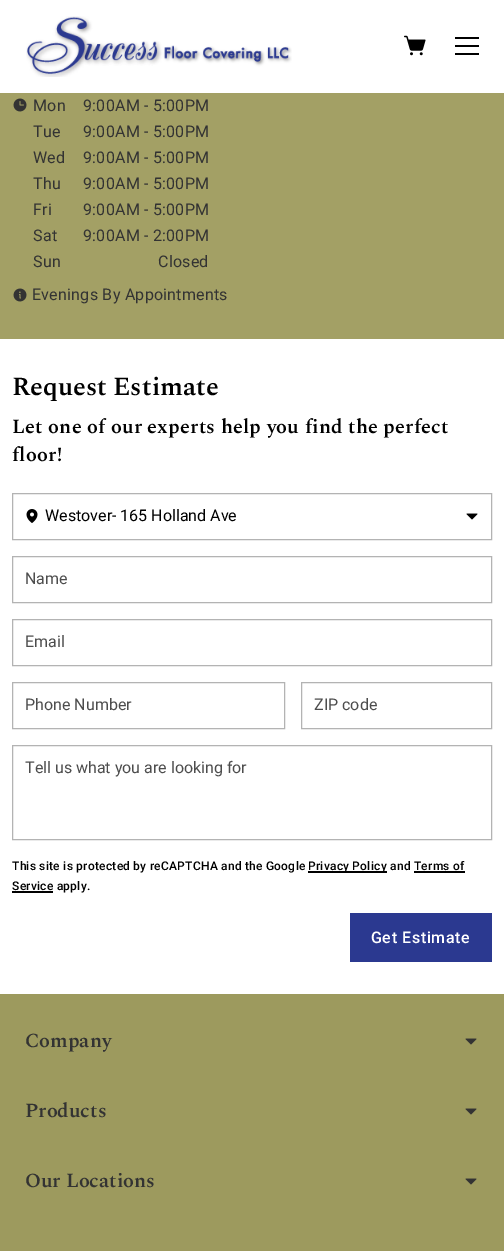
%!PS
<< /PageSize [504 1251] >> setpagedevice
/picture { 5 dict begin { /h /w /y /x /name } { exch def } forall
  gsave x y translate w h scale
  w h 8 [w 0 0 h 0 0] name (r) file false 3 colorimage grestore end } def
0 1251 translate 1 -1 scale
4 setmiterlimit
1 setgray
0 0 504 1251 rectfill
(img1.rgb) 26 16 266 61 picture
(img2.rgb) 404 35 22 21 picture
0 setgray
455 45 24 2 rectfill
455 37 24 2 rectfill
455 53 24 2 rectfill
0.639 0.627 0.396 setrgbcolor
0 93 504 246 rectfill
(img3.rgb) 13 98 14 14 picture
/Roboto-Regular [16 0 0 -16 0 0] selectfont
0.2 setgray
33 111 moveto 0.25 0 (Mon) ashow
83 111 moveto 0.25 0 (9:00AM - 5:00PM) ashow
33 137 moveto 0.25 0 (Tue) ashow
83 137 moveto 0.25 0 (9:00AM - 5:00PM) ashow
33 163 moveto 0.25 0 (Wed) ashow
83 163 moveto 0.25 0 (9:00AM - 5:00PM) ashow
33 189 moveto 0.25 0 (Thu) ashow
83 189 moveto 0.25 0 (9:00AM - 5:00PM) ashow
33 215 moveto 0.25 0 (Fri) ashow
83 215 moveto 0.25 0 (9:00AM - 5:00PM) ashow
33 241 moveto 0.25 0 (Sat) ashow
83 241 moveto 0.25 0 (9:00AM - 2:00PM) ashow
33 267 moveto 0.25 0 (Sun) ashow
158 267 moveto 0.25 0 (Closed) ashow
(img4.rgb) 13 288 14 14 picture
32 300 moveto 0.25 0 (Evenings By Appointments) ashow
/Spectral-SemiBold [26 0 0 -26 0 0] selectfont
0 setgray
12 395 moveto (Request Estimate) show
/Spectral-SemiBold [20 0 0 -20 0 0] selectfont
12 433 moveto 0.25 0 (Let one of our experts help you find the perfect) ashow
12 461 moveto 0.25 0 (floor!) ashow
0.702 setgray
12.5 493.5 479 46 rectstroke
(img5.rgb) 26 509 12 14 picture
/Roboto-Regular [16 0 0 -16 0 0] selectfont
0 setgray
45 521 moveto (Westover- 165 Holland Ave) show
(img6.rgb) 466 513 12 7 picture
0.702 setgray
12.5 556.5 479 46 rectstroke
0.302 setgray
25 584 moveto (Name) show
0.702 setgray
12.5 619.5 479 46 rectstroke
0.302 setgray
25 647 moveto (Email) show
0.702 setgray
12.5 682.5 272 46 rectstroke
0.302 setgray
25 710 moveto (Phone Number) show
0.702 setgray
301.5 682.5 190 46 rectstroke
0.302 setgray
314 710 moveto (ZIP code) show
0.702 setgray
12.5 745.5 479 94 rectstroke
0.302 setgray
25 773 moveto (Tell us what you are looking for) show
/Roboto-Medium [12 0 0 -12 0 0] selectfont
0 setgray
12 870 moveto 0.25 0 (This site is protected by reCAPTCHA and the Google) ashow
308 871 79 2 rectfill
308 870 moveto 0.25 0 (Privacy Policy and Terms of) ashow
12 891 41 2 rectfill
12 890 moveto 0.25 0 (Service apply.) ashow
414 871 51 2 rectfill
0.169 0.224 0.565 setrgbcolor
350 913 142 49 rectfill
/Roboto-Medium [16 0 0 -16 0 0] selectfont
1 setgray
371 943 moveto 0.6 0 (Get Estimate) ashow
0.616 0.604 0.369 setrgbcolor
0 994 504 257 rectfill
/Spectral-SemiBold [20 0 0 -20 0 0] selectfont
0.2 setgray
25 1047 moveto (Company) show
(img7.rgb) 465 1038 12 7 picture
25 1117 moveto (Products) show
(img7.rgb) 465 1108 12 7 picture
25 1187 moveto (Our Locations) show
(img7.rgb) 465 1178 12 7 picture
showpage
